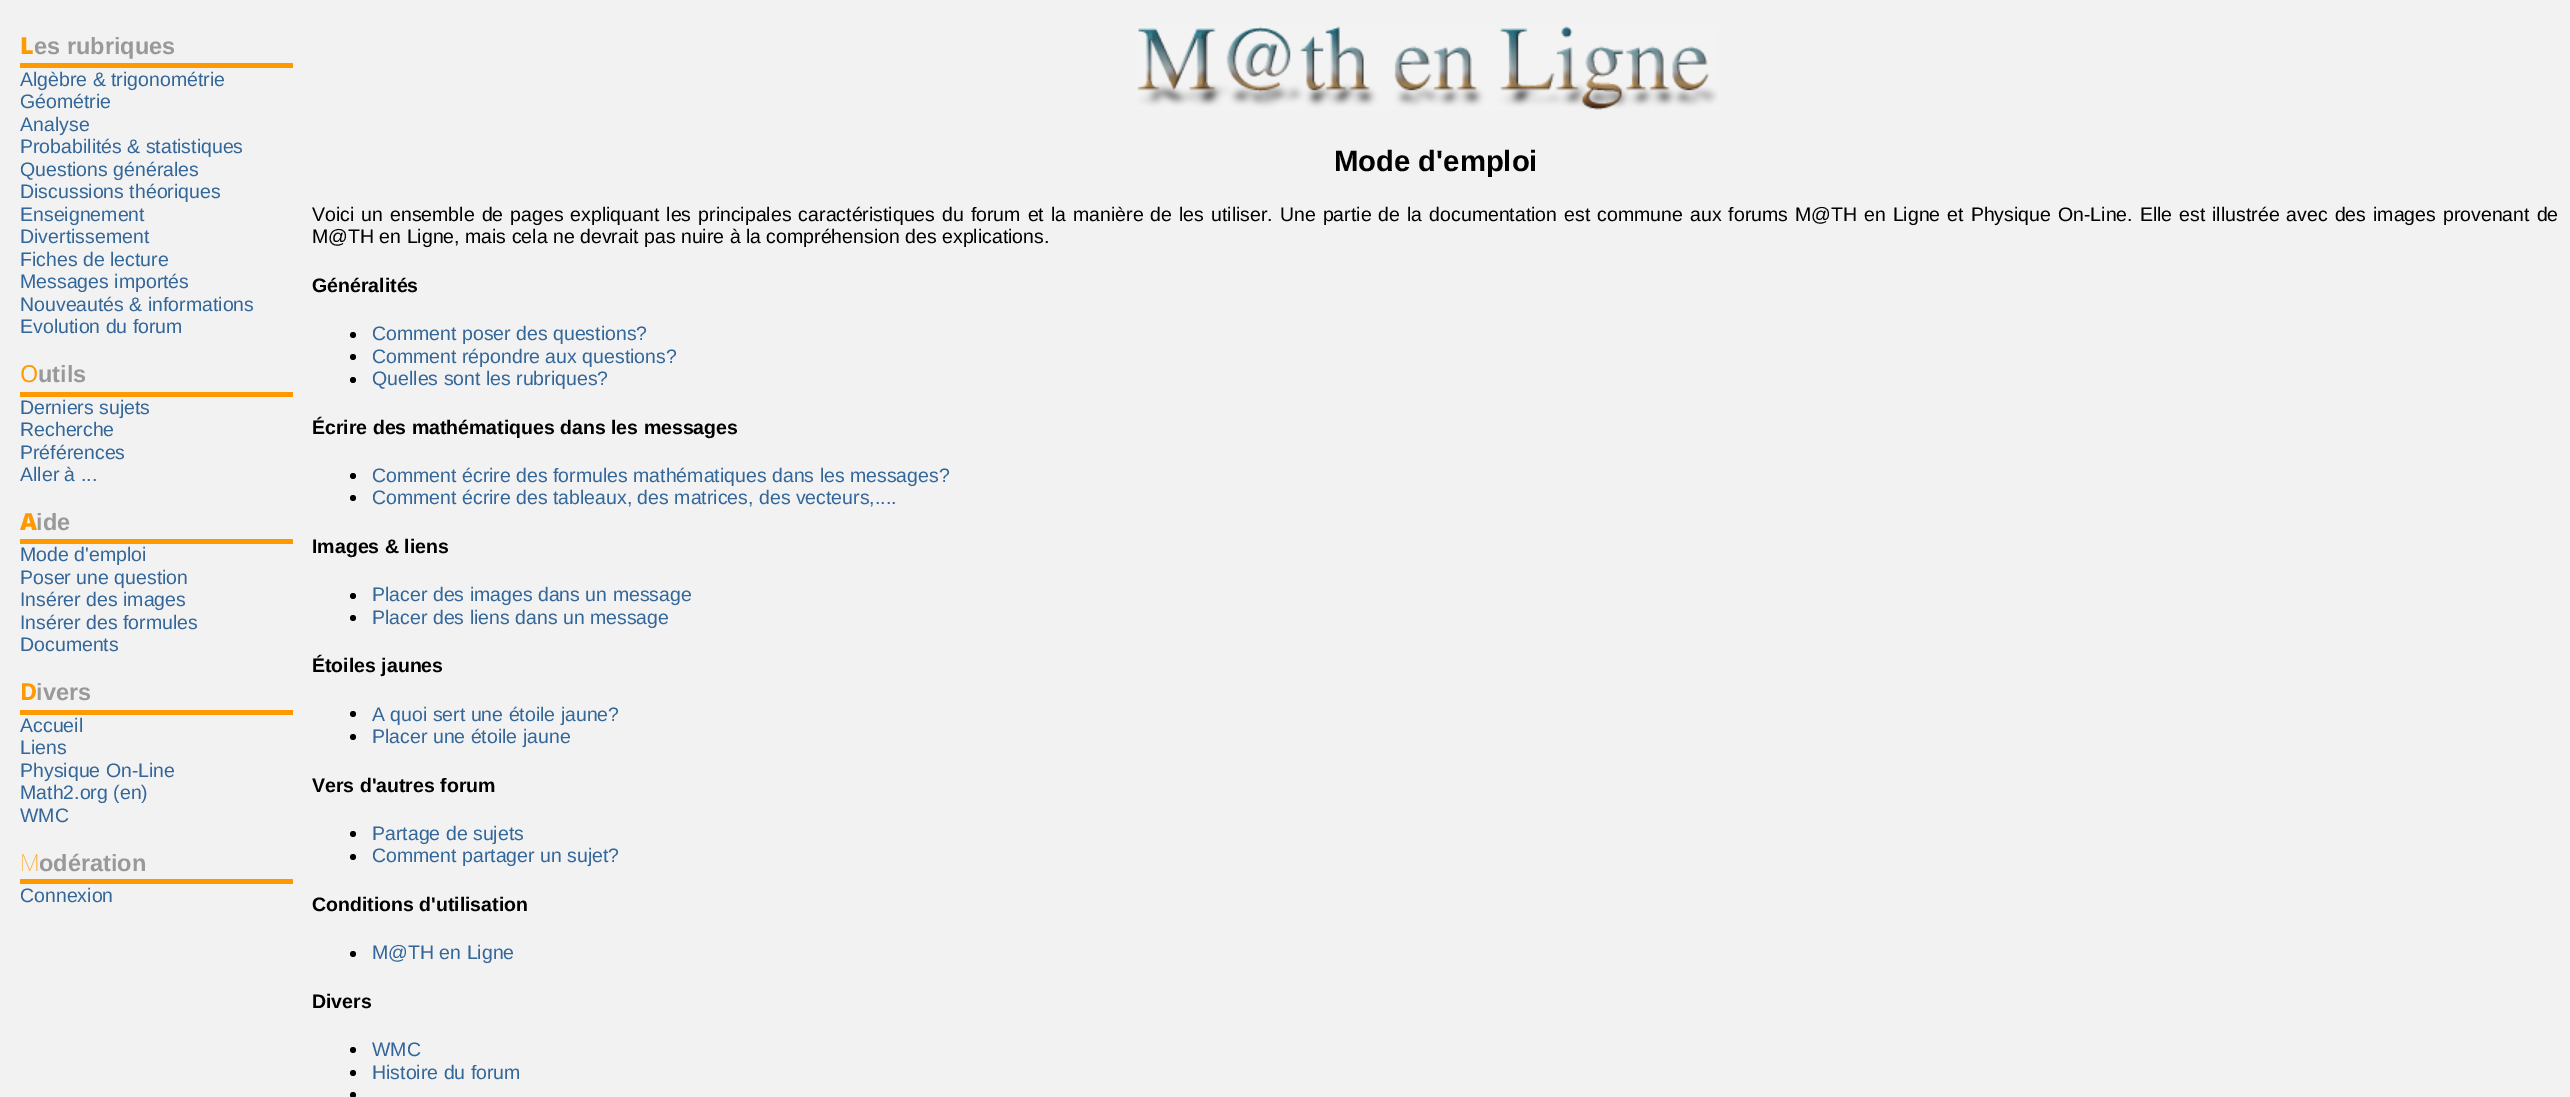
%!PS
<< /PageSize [2570 1097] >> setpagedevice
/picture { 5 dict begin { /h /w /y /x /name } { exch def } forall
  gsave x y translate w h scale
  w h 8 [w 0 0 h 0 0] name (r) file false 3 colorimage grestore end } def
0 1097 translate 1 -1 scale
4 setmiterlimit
0.949 setgray
0 0 2570 1097 rectfill
1 0.6 0 setrgbcolor
20 63 273 5 rectfill
/NotoSans-Black [23.5 0 0 -23.5 0 0] selectfont
20 54 moveto (L) show
/LiberationSans-Bold [23.5 0 0 -23.5 0 0] selectfont
0.6 setgray
34 54 moveto (es rubriques) show
/LiberationSans-Regular [19.5 0 0 -19.5 0 0] selectfont
0.2 0.4 0.6 setrgbcolor
20 86 moveto (Algèbre & trigonométrie) show
20 108 moveto (Géométrie) show
20 131 moveto (Analyse) show
20 153 moveto (Probabilités & statistiques) show
20 176 moveto (Questions générales) show
20 198 moveto (Discussions théoriques) show
20 221 moveto (Enseignement) show
20 243 moveto (Divertissement) show
20 266 moveto (Fiches de lecture) show
20 288 moveto (Messages importés) show
20 311 moveto (Nouveautés & informations) show
20 333 moveto (Evolution du forum) show
1 0.6 0 setrgbcolor
20 392 273 5 rectfill
/NotoSans-Regular [23.5 0 0 -23.5 0 0] selectfont
20 382 moveto (O) show
/LiberationSans-Bold [23.5 0 0 -23.5 0 0] selectfont
0.6 setgray
38 382 moveto (utils) show
/LiberationSans-Regular [19.5 0 0 -19.5 0 0] selectfont
0.2 0.4 0.6 setrgbcolor
20 414 moveto (Derniers sujets) show
20 436 moveto (Recherche) show
20 459 moveto (Préférences) show
20 481 moveto (Aller à ...) show
1 0.6 0 setrgbcolor
20 539 273 5 rectfill
/NotoSans-Black [23.5 0 0 -23.5 0 0] selectfont
20 530 moveto (A) show
/LiberationSans-Bold [23.5 0 0 -23.5 0 0] selectfont
0.6 setgray
36 530 moveto (ide) show
/LiberationSans-Regular [19.5 0 0 -19.5 0 0] selectfont
0.2 0.4 0.6 setrgbcolor
20 561 moveto (Mode d'emploi) show
20 584 moveto (Poser une question) show
20 606 moveto (Insérer des images) show
20 629 moveto (Insérer des formules) show
20 651 moveto (Documents) show
1 0.6 0 setrgbcolor
20 710 273 5 rectfill
/NotoSans-Bold [23.5 0 0 -23.5 0 0] selectfont
20 700 moveto (D) show
/LiberationSans-Bold [23.5 0 0 -23.5 0 0] selectfont
0.6 setgray
36 700 moveto (ivers) show
/LiberationSans-Regular [19.5 0 0 -19.5 0 0] selectfont
0.2 0.4 0.6 setrgbcolor
20 732 moveto (Accueil) show
20 754 moveto (Liens) show
20 777 moveto (Physique On-Line) show
20 799 moveto (Math2.org \(en\)) show
20 822 moveto (WMC) show
1 0.6 0 setrgbcolor
20 879 273 5 rectfill
/NotoSans-Thin [23.5 0 0 -23.5 0 0] selectfont
20 871 moveto (M) show
/LiberationSans-Bold [23.5 0 0 -23.5 0 0] selectfont
0.6 setgray
39 871 moveto (odération) show
/LiberationSans-Regular [19.5 0 0 -19.5 0 0] selectfont
0.2 0.4 0.6 setrgbcolor
20 902 moveto (Connexion) show
(img1.rgb) 1137 26 581 84 picture
/LiberationSans-Bold [29.25 0 0 -29.25 0 0] selectfont
0 setgray
1334 171 moveto (Mode d'emploi) show
/LiberationSans-Regular [19.5 0 0 -19.5 0 0] selectfont
312 221 moveto 1.6 0 32 (Voici un ensemble de pages expliquant les principales caractéristiques du forum et la manière de les utiliser. Une partie de la documentation est commune aux forums M@TH en Ligne et Physique On-Line. Elle est illustrée avec des images provenant de) widthshow
312 243 moveto (M@TH en Ligne, mais cela ne devrait pas nuire à la compréhension des explications.) show
/LiberationSans-Bold [19.5 0 0 -19.5 0 0] selectfont
312 292 moveto (Généralités) show
newpath 353 335 3 0 360 arc closepath fill
/LiberationSans-Regular [19.5 0 0 -19.5 0 0] selectfont
0.2 0.4 0.6 setrgbcolor
372 340 moveto (Comment poser des questions?) show
0 setgray
newpath 353 357 3 0 360 arc closepath fill
0.2 0.4 0.6 setrgbcolor
372 363 moveto (Comment répondre aux questions?) show
0 setgray
newpath 353 380 3 0 360 arc closepath fill
0.2 0.4 0.6 setrgbcolor
372 385 moveto (Quelles sont les rubriques?) show
/LiberationSans-Bold [19.5 0 0 -19.5 0 0] selectfont
0 setgray
312 434 moveto (Écrire des mathématiques dans les messages) show
newpath 353 476 3 0 360 arc closepath fill
/LiberationSans-Regular [19.5 0 0 -19.5 0 0] selectfont
0.2 0.4 0.6 setrgbcolor
372 482 moveto (Comment écrire des formules mathématiques dans les messages?) show
0 setgray
newpath 353 498 3 0 360 arc closepath fill
0.2 0.4 0.6 setrgbcolor
372 504 moveto (Comment écrire des tableaux, des matrices, des vecteurs,....) show
/LiberationSans-Bold [19.5 0 0 -19.5 0 0] selectfont
0 setgray
312 553 moveto (Images & liens) show
newpath 353 596 3 0 360 arc closepath fill
/LiberationSans-Regular [19.5 0 0 -19.5 0 0] selectfont
0.2 0.4 0.6 setrgbcolor
372 601 moveto (Placer des images dans un message) show
0 setgray
newpath 353 618 3 0 360 arc closepath fill
0.2 0.4 0.6 setrgbcolor
372 624 moveto (Placer des liens dans un message) show
/LiberationSans-Bold [19.5 0 0 -19.5 0 0] selectfont
0 setgray
312 672 moveto (Étoiles jaunes) show
newpath 353 714 3 0 360 arc closepath fill
/LiberationSans-Regular [19.5 0 0 -19.5 0 0] selectfont
0.2 0.4 0.6 setrgbcolor
372 721 moveto (A quoi sert une étoile jaune?) show
0 setgray
newpath 353 737 3 0 360 arc closepath fill
0.2 0.4 0.6 setrgbcolor
372 743 moveto (Placer une étoile jaune) show
/LiberationSans-Bold [19.5 0 0 -19.5 0 0] selectfont
0 setgray
312 792 moveto (Vers d'autres forum) show
newpath 353 834 3 0 360 arc closepath fill
/LiberationSans-Regular [19.5 0 0 -19.5 0 0] selectfont
0.2 0.4 0.6 setrgbcolor
372 840 moveto (Partage de sujets) show
0 setgray
newpath 353 857 3 0 360 arc closepath fill
0.2 0.4 0.6 setrgbcolor
372 862 moveto (Comment partager un sujet?) show
/LiberationSans-Bold [19.5 0 0 -19.5 0 0] selectfont
0 setgray
312 911 moveto (Conditions d'utilisation) show
newpath 353 954 3 0 360 arc closepath fill
/LiberationSans-Regular [19.5 0 0 -19.5 0 0] selectfont
0.2 0.4 0.6 setrgbcolor
372 959 moveto (M@TH en Ligne) show
/LiberationSans-Bold [19.5 0 0 -19.5 0 0] selectfont
0 setgray
312 1008 moveto (Divers) show
newpath 353 1050 3 0 360 arc closepath fill
/LiberationSans-Regular [19.5 0 0 -19.5 0 0] selectfont
0.2 0.4 0.6 setrgbcolor
372 1056 moveto (WMC) show
0 setgray
newpath 353 1073 3 0 360 arc closepath fill
0.2 0.4 0.6 setrgbcolor
372 1079 moveto (Histoire du forum) show
0 setgray
newpath 353 1095 3 0 360 arc closepath fill
showpage
